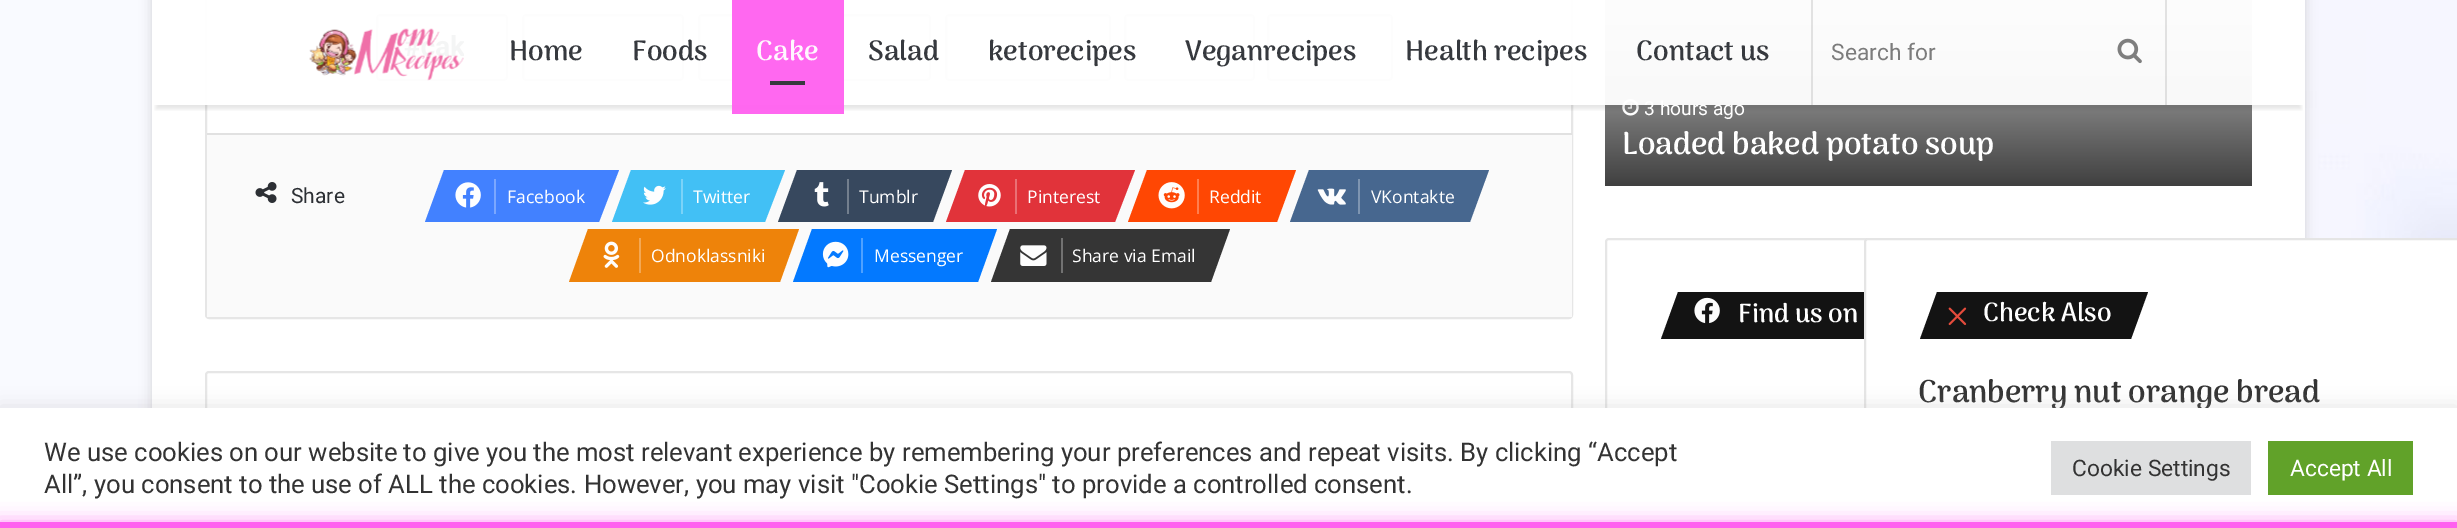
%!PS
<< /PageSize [2457 528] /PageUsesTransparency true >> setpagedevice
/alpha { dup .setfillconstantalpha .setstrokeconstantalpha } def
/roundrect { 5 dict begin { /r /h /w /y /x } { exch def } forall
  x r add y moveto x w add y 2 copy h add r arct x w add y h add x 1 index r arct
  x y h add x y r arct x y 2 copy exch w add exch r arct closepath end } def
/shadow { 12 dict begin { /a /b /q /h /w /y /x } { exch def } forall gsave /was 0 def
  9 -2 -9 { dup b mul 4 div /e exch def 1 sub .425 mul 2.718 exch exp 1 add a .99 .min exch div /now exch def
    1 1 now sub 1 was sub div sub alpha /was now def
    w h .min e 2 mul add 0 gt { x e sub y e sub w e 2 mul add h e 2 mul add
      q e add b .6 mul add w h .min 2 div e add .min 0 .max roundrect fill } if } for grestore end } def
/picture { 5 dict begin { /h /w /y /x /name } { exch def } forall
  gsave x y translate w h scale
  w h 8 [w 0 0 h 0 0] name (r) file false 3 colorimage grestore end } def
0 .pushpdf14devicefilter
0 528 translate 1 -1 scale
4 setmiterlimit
1 setgray
0 0 2457 528 rectfill
(img1.rgb) 0 0 2457 408 picture
0.671 setgray
152 -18 2153 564 0 6 0.5 shadow
1 setgray
152 0 2153 408 rectfill
0.902 setgray
2 setlinewidth
206 -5 1366 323 3 roundrect stroke
0.969 setgray
376 14 132 67 4 roundrect fill
0.1 alpha
0 setgray
377 15 130 65 3 roundrect stroke
1 alpha
0.969 setgray
522 14 162 67 4 roundrect fill
0.1 alpha
0 setgray
523 15 160 65 3 roundrect stroke
1 alpha
0.969 setgray
698 14 233 67 4 roundrect fill
0.1 alpha
0 setgray
699 15 231 65 3 roundrect stroke
1 alpha
0.969 setgray
945 14 166 67 4 roundrect fill
0.1 alpha
0 setgray
946 15 164 65 3 roundrect stroke
1 alpha
0.969 setgray
1124 14 131 67 4 roundrect fill
0.1 alpha
0 setgray
1125 15 129 65 3 roundrect stroke
1 alpha
0.969 setgray
1267 14 126 67 4 roundrect fill
0.1 alpha
0 setgray
1268 15 124 65 3 roundrect stroke
1 alpha
gsave newpath 1605 0 moveto 2252 0 lineto 2252 186 lineto 1605 186 lineto closepath clip newpath
<< /ShadingType 2 /ColorSpace /DeviceRGB /Coords [1929 -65 1929 186] /Extend [true true] /Function << /FunctionType 2 /Domain [0 1] /C0 [1 1 1] /C1 [0.251 0.251 0.251] /N 1 >> >> shfill grestore
(img14.rgb) 1622 99 17 17 picture
gsave
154 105 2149 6 rectclip
156 11 2145 98 0 2 0.1 shadow
grestore
/Roboto-Regular [19.25 0 0 -19.25 0 0] selectfont
1 setgray
1644 115 moveto (3 hours ago) show
0.95 alpha
205 0 2047 105 rectfill
1 alpha
(img2.rgb) 309 28 155 53 picture
/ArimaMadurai-Bold [28 0 0 -28 0 0] selectfont
0.212 0.224 0.243 setrgbcolor
509 60 moveto (Home) show
632 60 moveto (Foods) show
0.95 alpha
1 0.376 0.937 setrgbcolor
732 105 112 9 rectfill
732 0 112 105 rectfill
1 alpha
1 0.969 0.996 setrgbcolor
756 60 moveto (Cake) show
0.216 0.224 0.243 setrgbcolor
770 81 35 4 rectfill
0.212 0.224 0.243 setrgbcolor
868 60 moveto (Salad) show
988 60 moveto (ketorecipes) show
1185 60 moveto (Veganrecipes) show
1405 60 moveto (Health recipes) show
1636 60 moveto (Contact us) show
0.1 alpha
0 setgray
2165 0 2 105 rectfill
1811 0 2 105 rectfill
/Roboto-Regular [22.75 0 0 -22.75 0 0] selectfont
1 alpha
0.486 setgray
1831 60 moveto (Search for) show
(img3.rgb) 2117 38 25 26 picture
0.98 setgray
207 135 1365 182 rectfill
0.882 setgray
207 133 1365 2 rectfill
(img4.rgb) 255 182 22 21 picture
/Roboto-Regular [21 0 0 -21 0 0] selectfont
0.173 0.184 0.204 setrgbcolor
291 203 moveto (Share) show
0.259 0.506 1 setrgbcolor
newpath 444 170 moveto 619 170 lineto 599 222 lineto 425 222 lineto closepath fill
(img5.rgb) 455 182 26 26 picture
0.482 0.655 1 setrgbcolor
494 179 2 35 rectfill
/OpenSans-Regular [17.5 0 0 -17.5 0 0] selectfont
1 setgray
507 203 moveto (Facebook) show
0.259 0.753 0.961 setrgbcolor
newpath 631 170 moveto 785 170 lineto 765 222 lineto 612 222 lineto closepath fill
(img6.rgb) 643 185 23 20 picture
0.482 0.827 0.973 setrgbcolor
681 179 2 35 rectfill
1 setgray
693 203 moveto (Twitter) show
0.216 0.282 0.369 setrgbcolor
newpath 797 170 moveto 952 170 lineto 933 222 lineto 778 222 lineto closepath fill
(img7.rgb) 814 182 15 25 picture
0.451 0.498 0.557 setrgbcolor
847 179 2 35 rectfill
1 setgray
859 203 moveto (Tumblr) show
0.882 0.2 0.227 setrgbcolor
newpath 965 170 moveto 1135 170 lineto 1115 222 lineto 946 222 lineto closepath fill
(img8.rgb) 978 184 23 23 picture
0.918 0.439 0.459 setrgbcolor
1015 179 2 35 rectfill
1 setgray
1027 203 moveto (Pinterest) show
1 0.278 0.012 setrgbcolor
newpath 1147 170 moveto 1296 170 lineto 1277 222 lineto 1128 222 lineto closepath fill
(img9.rgb) 1158 182 27 27 picture
1 0.494 0.31 setrgbcolor
1197 179 2 35 rectfill
1 setgray
1209 203 moveto (Reddit) show
0.278 0.404 0.561 setrgbcolor
newpath 1309 170 moveto 1489 170 lineto 1470 222 lineto 1290 222 lineto closepath fill
(img10.rgb) 1317 188 29 17 picture
0.494 0.584 0.694 setrgbcolor
1358 179 2 35 rectfill
1 setgray
1371 203 moveto (VKontakte) show
0.933 0.514 0.039 setrgbcolor
newpath 588 229 moveto 799 229 lineto 780 282 lineto 569 282 lineto closepath fill
(img11.rgb) 603 241 17 27 picture
0.953 0.659 0.329 setrgbcolor
639 238 2 35 rectfill
1 setgray
651 262 moveto (Odnoklassniki) show
0.012 0.475 1 setrgbcolor
newpath 812 229 moveto 997 229 lineto 978 282 lineto 793 282 lineto closepath fill
(img12.rgb) 822 241 27 27 picture
0.31 0.631 1 setrgbcolor
861 238 2 35 rectfill
1 setgray
874 262 moveto (Messenger) show
0.208 setgray
newpath 1010 229 moveto 1230 229 lineto 1211 282 lineto 991 282 lineto closepath fill
(img13.rgb) 1020 245 27 21 picture
0.447 setgray
1061 238 2 35 rectfill
1 setgray
1072 262 moveto (Share via Email) show
0.902 setgray
206 372 1366 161 3 roundrect stroke
/ArimaMadurai-Bold [31.5 0 0 -31.5 0 0] selectfont
1 setgray
1622 154 moveto (Loaded baked potato soup) show
0.902 setgray
1606 239 645 226 3 roundrect stroke
0.075 setgray
newpath 1678 292 moveto 2013 292 lineto 1996 339 lineto 1661 339 lineto closepath fill
(img15.rgb) 1694 297 26 27 picture
/ArimaMadurai-Bold [26.25 0 0 -26.25 0 0] selectfont
1 setgray
1738 322 moveto (Find us on) show
newpath 1868 238 moveto 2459 238 lineto 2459 502 lineto 1868 502 lineto 1866 502 1864 500 1864 498 curveto 1864 242 lineto 1864 240 1866 238 1868 238 curveto closepath fill
0.1 alpha
0 setgray
newpath 1868 239 moveto 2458 239 lineto 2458 501 lineto 1868 501 lineto 1866.5 501 1865 499.5 1865 498 curveto 1865 242 lineto 1865 240.5 1866.5 239 1868 239 curveto closepath stroke
1 alpha
0.075 setgray
newpath 1937 292 moveto 2148 292 lineto 2131 339 lineto 1920 339 lineto closepath fill
(img16.rgb) 1948 307 19 19 picture
1 setgray
1983 321 moveto (Check Also) show
/ArimaMadurai-Bold [31.5 0 0 -31.5 0 0] selectfont
0.2 setgray
1918 402 moveto (Cranberry nut orange bread) show
0.675 0.671 0.671 setrgbcolor
0 406 2457 121 0 9 0.3 shadow
1 setgray
0 408 2457 114 rectfill
/Roboto-Regular [25.67 0 0 -25.67 0 0] selectfont
0.2 setgray
44 461 moveto (We use cookies on our website to give you the most relevant experience by remembering your preferences and repeat visits. By clicking “Accept) show
44 493 moveto (All”, you consent to the use of ALL the cookies. However, you may visit "Cookie Settings" to provide a controlled consent.) show
0.871 0.875 0.878 setrgbcolor
2051 441 200 54 rectfill
/Roboto-Regular [22.75 0 0 -22.75 0 0] selectfont
0.2 setgray
2072 476 moveto (Cookie Settings) show
0.38 0.635 0.161 setrgbcolor
2268 441 145 54 rectfill
1 setgray
2290 476 moveto (Accept All) show
1 0.376 0.937 setrgbcolor
0 522 2457 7 0 9 0.7 shadow
0 522 2457 6 rectfill
.poppdf14devicefilter showpage
